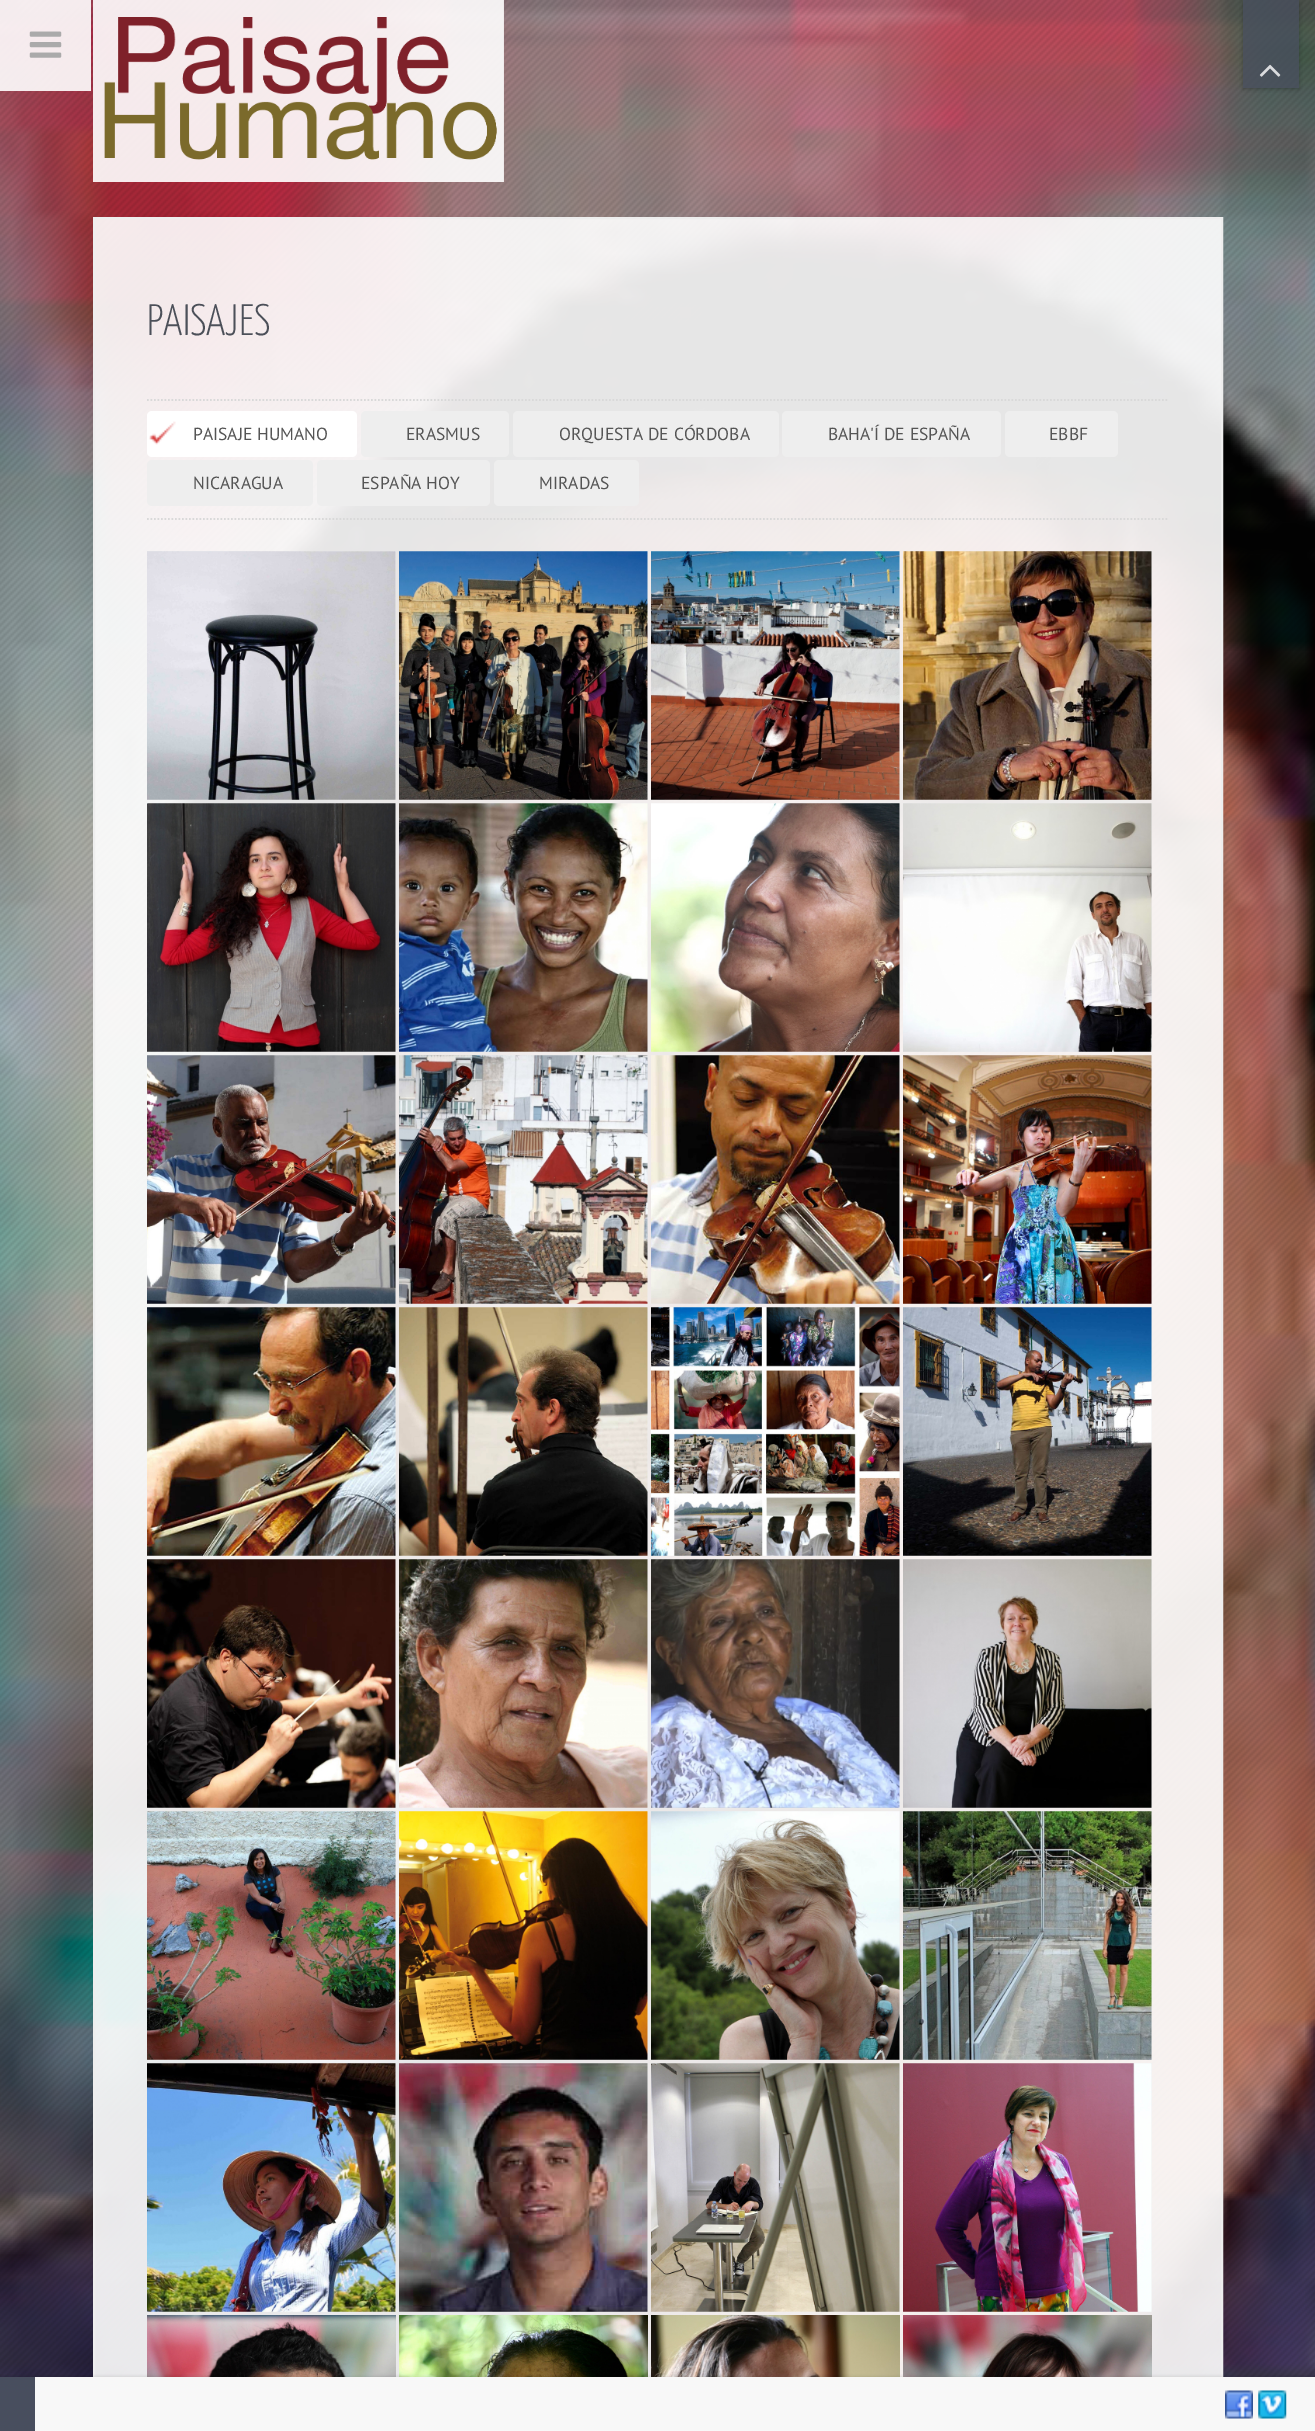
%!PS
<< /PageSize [1315 2431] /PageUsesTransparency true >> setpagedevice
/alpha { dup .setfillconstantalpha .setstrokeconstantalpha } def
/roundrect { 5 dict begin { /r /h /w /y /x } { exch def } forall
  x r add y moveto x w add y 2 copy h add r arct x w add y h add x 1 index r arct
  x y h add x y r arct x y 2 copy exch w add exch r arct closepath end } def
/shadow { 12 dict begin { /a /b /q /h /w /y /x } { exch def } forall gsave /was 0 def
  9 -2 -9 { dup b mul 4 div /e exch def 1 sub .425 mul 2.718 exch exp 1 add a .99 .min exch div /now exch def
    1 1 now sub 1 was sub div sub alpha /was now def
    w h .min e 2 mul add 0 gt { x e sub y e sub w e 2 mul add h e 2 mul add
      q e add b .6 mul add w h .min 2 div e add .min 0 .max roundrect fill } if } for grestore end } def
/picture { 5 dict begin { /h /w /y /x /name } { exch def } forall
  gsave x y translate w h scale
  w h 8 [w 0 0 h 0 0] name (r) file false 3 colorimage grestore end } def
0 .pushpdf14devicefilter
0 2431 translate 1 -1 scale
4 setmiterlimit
1 setgray
0 0 1315 2431 rectfill
(img1.rgb) 0 0 1315 2377 picture
(img2.rgb) 0 0 1315 2377 picture
0.9 alpha
0 0 91 91 rectfill
1 alpha
(img3.rgb) 29 31 33 27 picture
(img4.rgb) 93 0 411 182 picture
gsave
newpath 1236 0 moveto 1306 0 lineto 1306 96 lineto 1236 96 lineto closepath 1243 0 moveto 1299 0 lineto 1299 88 lineto 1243 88 lineto closepath eoclip newpath
0 setgray
1243 2 56 87 0 2 0.25 shadow
grestore
0.75 alpha
0.282 0.306 0.369 setrgbcolor
1243 0 56 88 rectfill
1 alpha
(img5.rgb) 1259 64 22 13 picture
0.9 alpha
1 setgray
95 219 1126 2158 rectfill
1 alpha
0.933 setgray
2 setlinewidth
94 218 1128 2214 rectstroke
/YanoneKaffeesatz-Light [44 0 0 -44 0 0] selectfont
0.298 0.314 0.349 setrgbcolor
147 335 moveto (PAISAJES) show
0.851 setgray
1.8 setlinewidth
[1.75 1.75] 0 setdash
newpath 147 400 moveto 1169 400 lineto stroke
newpath 147 519 moveto 1169 519 lineto stroke
1 setgray
147 411 210 46 5 roundrect fill
(img6.rgb) 149 421 27 24 picture
/PTSans-Regular [17.5 0 0 -17.5 0 0] selectfont
0.333 setgray
193 440 moveto (PAISAJE HUMANO) show
0.933 setgray
361 411 148 46 5 roundrect fill
0.333 setgray
406 440 moveto (ERASMUS) show
0.933 setgray
513 411 266 46 5 roundrect fill
0.333 setgray
559 440 moveto (ORQUESTA DE CÓRDOBA) show
0.933 setgray
782 411 219 46 5 roundrect fill
0.333 setgray
828 440 moveto (BAHA'Í DE ESPAÑA) show
0.933 setgray
1005 411 113 46 5 roundrect fill
0.333 setgray
1049 440 moveto (EBBF) show
0.933 setgray
147 460 166 46 5 roundrect fill
0.333 setgray
193 489 moveto (NICARAGUA) show
0.933 setgray
317 460 173 46 5 roundrect fill
0.333 setgray
361 489 moveto (ESPAÑA HOY) show
0.933 setgray
494 460 145 46 5 roundrect fill
0.333 setgray
539 489 moveto (MIRADAS) show
0.933 setgray
147 551 249 249 rectfill
(img7.rgb) 147 551 249 249 picture
399 551 249 249 rectfill
(img8.rgb) 399 551 249 249 picture
651 551 249 249 rectfill
(img9.rgb) 651 551 249 249 picture
903 551 249 249 rectfill
(img10.rgb) 903 551 249 249 picture
147 803 249 249 rectfill
(img11.rgb) 147 803 249 249 picture
399 803 249 249 rectfill
(img12.rgb) 399 803 249 249 picture
651 803 249 249 rectfill
(img13.rgb) 651 803 249 249 picture
903 803 249 249 rectfill
(img14.rgb) 903 803 249 249 picture
147 1055 249 249 rectfill
(img15.rgb) 147 1055 249 249 picture
399 1055 249 249 rectfill
(img16.rgb) 399 1055 249 249 picture
651 1055 249 249 rectfill
(img17.rgb) 651 1055 249 249 picture
903 1055 249 249 rectfill
(img18.rgb) 903 1055 249 249 picture
147 1307 249 249 rectfill
(img19.rgb) 147 1307 249 249 picture
399 1307 249 249 rectfill
(img20.rgb) 399 1307 249 249 picture
651 1307 249 249 rectfill
(img21.rgb) 651 1307 249 249 picture
903 1307 249 249 rectfill
(img22.rgb) 903 1307 249 249 picture
147 1559 249 249 rectfill
(img23.rgb) 147 1559 249 249 picture
399 1559 249 249 rectfill
(img24.rgb) 399 1559 249 249 picture
651 1559 249 249 rectfill
(img25.rgb) 651 1559 249 249 picture
903 1559 249 249 rectfill
(img26.rgb) 903 1559 249 249 picture
147 1811 249 249 rectfill
(img27.rgb) 147 1811 249 249 picture
399 1811 249 249 rectfill
(img28.rgb) 399 1811 249 249 picture
651 1811 249 249 rectfill
(img29.rgb) 651 1811 249 249 picture
903 1811 249 249 rectfill
(img30.rgb) 903 1811 249 249 picture
147 2063 249 249 rectfill
(img31.rgb) 147 2063 249 249 picture
399 2063 249 249 rectfill
(img32.rgb) 399 2063 249 249 picture
651 2063 249 249 rectfill
(img33.rgb) 651 2063 249 249 picture
903 2063 249 249 rectfill
(img34.rgb) 903 2063 249 249 picture
(img35.rgb) 147 2315 249 62 picture
(img36.rgb) 399 2315 249 62 picture
(img37.rgb) 651 2315 249 62 picture
(img38.rgb) 903 2315 249 62 picture
0 setgray
0 2378 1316 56 0 2 0.25 shadow
0.973 setgray
35 2377 1280 54 rectfill
0.282 0.306 0.369 setrgbcolor
0 2377 35 54 rectfill
(img39.rgb) 1225 2390 28 29 picture
(img40.rgb) 1258 2390 29 29 picture
.poppdf14devicefilter showpage
